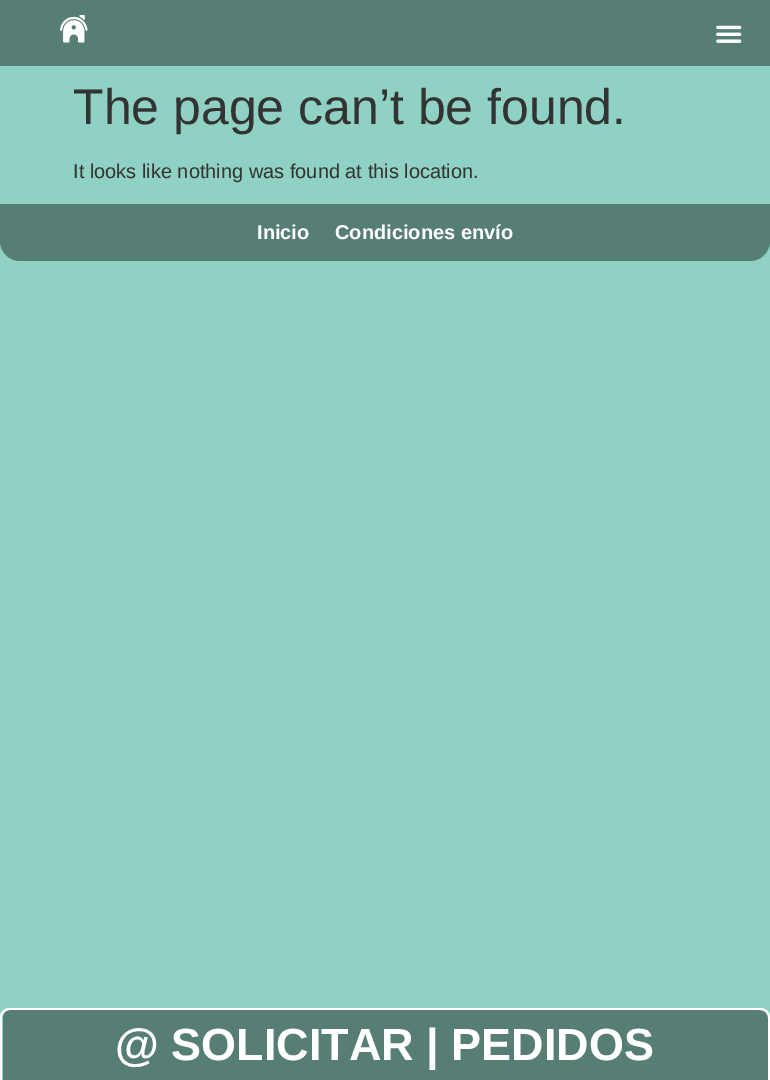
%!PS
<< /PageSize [770 1080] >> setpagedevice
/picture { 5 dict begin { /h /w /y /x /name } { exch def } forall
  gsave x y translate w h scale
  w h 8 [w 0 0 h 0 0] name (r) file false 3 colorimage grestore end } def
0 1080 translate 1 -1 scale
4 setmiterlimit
0.561 0.82 0.765 setrgbcolor
0 0 770 1080 rectfill
0.337 0.494 0.459 setrgbcolor
0 0 770 66 rectfill
(img1.rgb) 60 15 28 28 picture
(img2.rgb) 716 25 26 18 picture
/LiberationSans-Regular [50 0 0 -50 0 0] selectfont
0.2 setgray
73 124 moveto (The page can’t be found.) show
/LiberationSans-Regular [20 0 0 -20 0 0] selectfont
73 178 moveto (It looks like nothing was found at this location.) show
0.337 0.494 0.459 setrgbcolor
newpath 0 204 moveto 770 204 lineto 770 241 lineto 770 252 761 261 750 261 curveto 20 261 lineto 9 261 0 252 0 241 curveto closepath fill
/LiberationSans-Bold [20 0 0 -20 0 0] selectfont
1 setgray
257 239 moveto (Inicio) show
335 239 moveto (Condiciones envío) show
0.337 0.494 0.459 setrgbcolor
newpath 11 1010 moveto 760 1010 lineto 764.5 1010 768 1013.5 768 1018 curveto 768 1080 lineto 3 1080 lineto 3 1018 lineto 3 1013.5 6.5 1010 11 1010 curveto closepath fill
1 setgray
newpath 10 1008 moveto 760 1008 lineto 766 1008 770 1012 770 1018 curveto 770 1080 lineto 0 1080 lineto 0 1018 lineto 0 1012 4 1008 10 1008 curveto closepath 10 1010 moveto 760 1010 lineto 764 1010 768 1013 768 1018 curveto 768 1080 lineto 2 1080 lineto 2 1018 lineto 2 1013 6 1010 10 1010 curveto closepath eofill
/LiberationSans-Bold [45 0 0 -45 0 0] selectfont
115 1060 moveto (@ SOLICITAR | PEDIDOS) show
showpage
